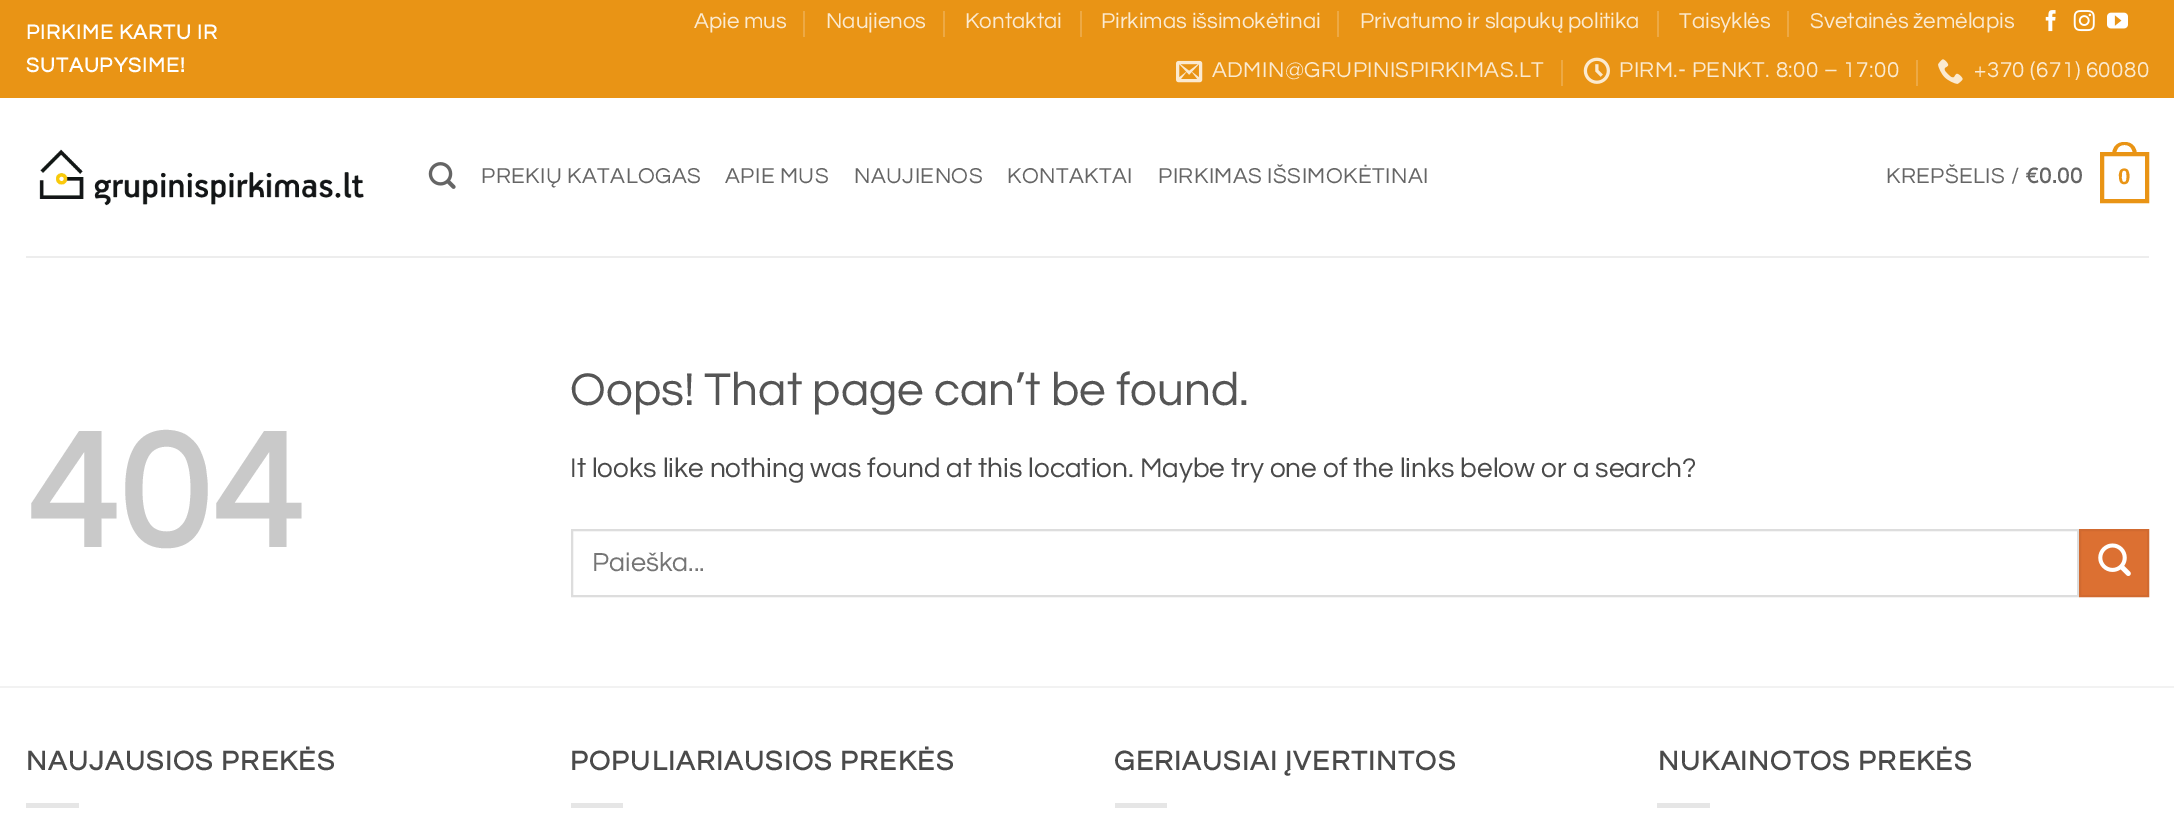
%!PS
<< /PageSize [2174 813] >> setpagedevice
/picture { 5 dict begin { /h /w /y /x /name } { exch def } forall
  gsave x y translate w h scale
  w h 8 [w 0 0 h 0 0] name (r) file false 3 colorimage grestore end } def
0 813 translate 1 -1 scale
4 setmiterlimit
1 setgray
0 0 2174 813 rectfill
0.914 0.58 0.082 setrgbcolor
0 0 2174 98 rectfill
/Questrial-Bold [21 0 0 -21 0 0] selectfont
1 setgray
26 39 moveto 1 0 (PIRKIME KARTU IR) ashow
26 72 moveto 1 0 (SUTAUPYSIME!) ashow
/Questrial-Regular [22.4 0 0 -22.4 0 0] selectfont
0.984 0.918 0.816 setrgbcolor
694 28 moveto (Apie mus) show
0.929 0.663 0.267 setrgbcolor
803 11 2 26 rectfill
0.984 0.918 0.816 setrgbcolor
826 28 moveto (Naujienos) show
0.929 0.663 0.267 setrgbcolor
943 11 2 26 rectfill
0.984 0.918 0.816 setrgbcolor
965 28 moveto (Kontaktai) show
0.929 0.663 0.267 setrgbcolor
1080 11 2 26 rectfill
0.984 0.918 0.816 setrgbcolor
1101 28 moveto (Pirkimas išsimokėtinai) show
0.929 0.663 0.267 setrgbcolor
1337 11 2 26 rectfill
0.984 0.918 0.816 setrgbcolor
1360 28 moveto (Privatumo ir slapukų politika) show
0.929 0.663 0.267 setrgbcolor
1657 11 2 26 rectfill
0.984 0.918 0.816 setrgbcolor
1679 28 moveto (Taisyklės) show
0.929 0.663 0.267 setrgbcolor
1787 11 2 26 rectfill
0.984 0.918 0.816 setrgbcolor
1810 28 moveto (Svetainės žemėlapis) show
(img1.rgb) 2045 10 11 22 picture
(img2.rgb) 2073 10 22 22 picture
(img3.rgb) 2107 12 21 17 picture
(img4.rgb) 1176 60 27 23 picture
1212 77 moveto 0.45 0 (ADMIN@GRUPINISPIRKIMAS.LT) ashow
0.929 0.663 0.267 setrgbcolor
1561 60 2 26 rectfill
(img5.rgb) 1583 57 27 27 picture
0.984 0.918 0.816 setrgbcolor
1619 77 moveto 0.45 0 (PIRM.- PENKT. 8:00 – 17:00) ashow
0.929 0.663 0.267 setrgbcolor
1916 60 2 26 rectfill
(img6.rgb) 1938 59 25 25 picture
0.984 0.918 0.816 setrgbcolor
1974 77 moveto 0.45 0 (+370 \(671\) 60080) ashow
(img7.rgb) 39 149 325 57 picture
(img8.rgb) 428 162 28 27 picture
0.396 setgray
481 183 moveto 0.45 0 (PREKIŲ KATALOGAS) ashow
725 183 moveto 0.45 0 (APIE MUS) ashow
854 183 moveto 0.45 0 (NAUJIENOS) ashow
1007 183 moveto 0.45 0 (KONTAKTAI) ashow
1158 183 moveto 0.45 0 (PIRKIMAS IŠSIMOKĖTINAI) ashow
1886 183 moveto 0.45 0 (KREPŠELIS /) ashow
/Questrial-Bold [22.4 0 0 -22.4 0 0] selectfont
2025 183 moveto 0.45 0 (€0.00) ashow
0.914 0.58 0.082 setrgbcolor
4 setlinewidth
2102 154 45 47 rectstroke
newpath 2124.5 142 moveto 2133 142 2137 148 2137 156 curveto 2112 156 lineto 2112 148 2116 142 2124.5 142 curveto closepath 2124.5 145 moveto 2131 145 2133 150 2133 156 curveto 2116 156 lineto 2116 150 2118 145 2124.5 145 curveto closepath eofill
/LiberationSans-Bold [22.4 0 0 -22.4 0 0] selectfont
2118 184 moveto 0.45 0 (0) ashow
0.929 setgray
26 256 2123 2 rectfill
/Questrial-Bold [168 0 0 -168 0 0] selectfont
0.788 setgray
26 547 moveto (404) show
/Questrial-Regular [47.6 0 0 -47.6 0 0] selectfont
0.333 setgray
570 405 moveto (Oops! That page can’t be found.) show
/Questrial-Regular [28 0 0 -28 0 0] selectfont
0.29 setgray
570 477 moveto (It looks like nothing was found at this location. Maybe try one of the links below or a search?) show
0.867 setgray
2 setlinewidth
572 530 1506 66 rectstroke
/Questrial-Regular [27 0 0 -27 0 0] selectfont
0.459 setgray
592 571 moveto (Paieška...) show
0.863 0.439 0.196 setrgbcolor
newpath 2080 530 moveto 2148 530 lineto 2148 596 lineto 2080 596 lineto closepath gsave fill grestore
0.82 0.416 0.188 setrgbcolor
stroke
(img9.rgb) 2098 543 33 33 picture
0.949 setgray
0 686 2174 2 rectfill
/Questrial-Bold [28 0 0 -28 0 0] selectfont
0.29 setgray
26 770 moveto 1.4 0 (NAUJAUSIOS PREKĖS) ashow
0.902 setgray
26 803 53 5 rectfill
0.29 setgray
570 770 moveto 1.4 0 (POPULIARIAUSIOS PREKĖS) ashow
0.902 setgray
571 803 52 5 rectfill
0.29 setgray
1114 770 moveto 1.4 0 (GERIAUSIAI ĮVERTINTOS) ashow
0.902 setgray
1115 803 52 5 rectfill
0.29 setgray
1658 770 moveto 1.4 0 (NUKAINOTOS PREKĖS) ashow
0.902 setgray
1657 803 53 5 rectfill
showpage
